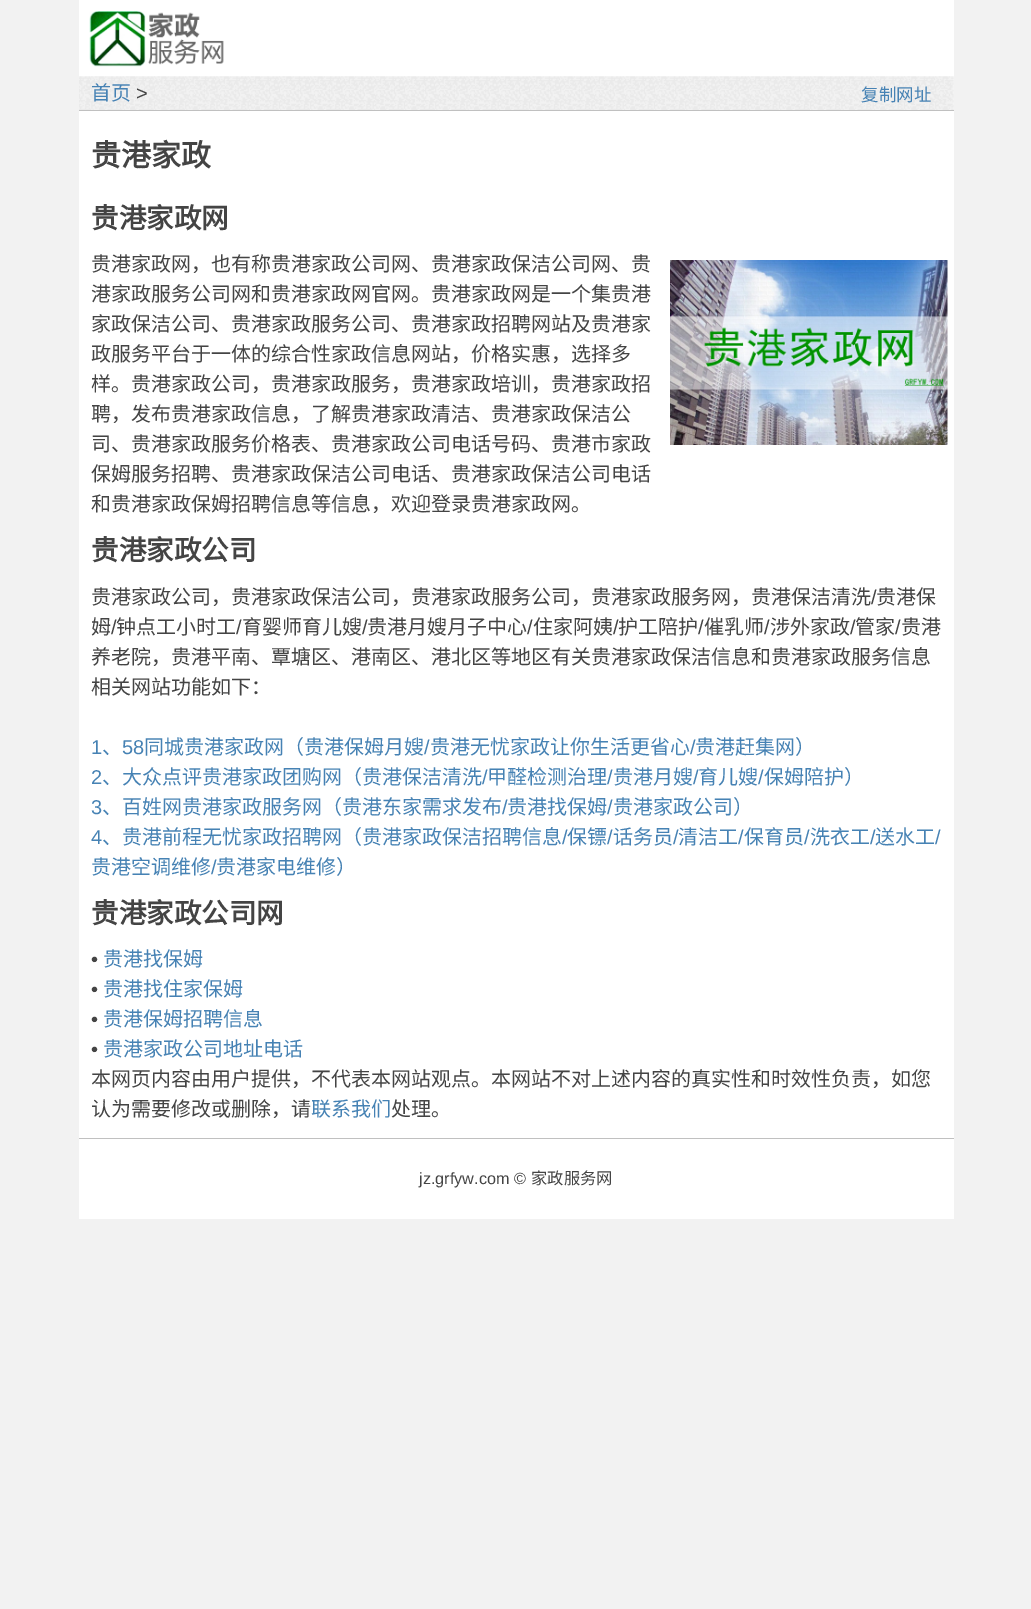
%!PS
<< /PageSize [1031 1609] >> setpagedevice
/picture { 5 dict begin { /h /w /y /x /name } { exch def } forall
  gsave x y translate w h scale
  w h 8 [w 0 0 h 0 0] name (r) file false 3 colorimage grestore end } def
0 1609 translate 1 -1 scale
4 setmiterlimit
0.949 setgray
0 0 1031 1609 rectfill
1 setgray
79 0 875 110 rectfill
(img1.rgb) 89 11 135 56 picture
(img2.rgb) 79 76 875 34 picture
0.753 setgray
79 110 875 1 rectfill
/NotoSansCJKSC-Regular [20 0 0 -20 0 0] selectfont
0.275 0.51 0.706 setrgbcolor
91 100 moveto (首页) show
/LiberationSans-Regular [20 0 0 -20 0 0] selectfont
0.267 setgray
136 100 moveto (>) show
/NotoSansCJKSC-Regular [17.5 0 0 -17.5 0 0] selectfont
0.275 0.51 0.706 setrgbcolor
861 101 moveto (复制网址) show
1 setgray
79 111 875 1027 rectfill
/NotoSansCJKSC-Bold [30 0 0 -30 0 0] selectfont
0.267 setgray
91 166 moveto (贵港家政) show
/NotoSansCJKSC-Bold [27.5 0 0 -27.5 0 0] selectfont
91 228 moveto (贵港家政网) show
/NotoSansCJKSC-Regular [20 0 0 -20 0 0] selectfont
91 271 moveto (贵港家政网，也有称贵港家政公司网、贵港家政保洁公司网、贵) show
(img3.rgb) 670 260 278 185 picture
91 301 moveto (港家政服务公司网和贵港家政网官网。贵港家政网是一个集贵港) show
91 331 moveto (家政保洁公司、贵港家政服务公司、贵港家政招聘网站及贵港家) show
91 361 moveto (政服务平台于一体的综合性家政信息网站，价格实惠，选择多) show
91 391 moveto (样。贵港家政公司，贵港家政服务，贵港家政培训，贵港家政招) show
91 421 moveto (聘，发布贵港家政信息，了解贵港家政清洁、贵港家政保洁公) show
91 451 moveto (司、贵港家政服务价格表、贵港家政公司电话号码、贵港市家政) show
91 481 moveto (保姆服务招聘、贵港家政保洁公司电话、贵港家政保洁公司电话) show
91 511 moveto (和贵港家政保姆招聘信息等信息，欢迎登录贵港家政网。) show
/NotoSansCJKSC-Bold [27.5 0 0 -27.5 0 0] selectfont
91 560 moveto (贵港家政公司) show
/NotoSansCJKSC-Regular [20 0 0 -20 0 0] selectfont
91 604 moveto (贵港家政公司，贵港家政保洁公司，贵港家政服务公司，贵港家政服务网，贵港保洁清洗) show
/LiberationSans-Regular [20 0 0 -20 0 0] selectfont
871 604 moveto (/) show
/NotoSansCJKSC-Regular [20 0 0 -20 0 0] selectfont
876 604 moveto (贵港保) show
91 634 moveto (姆) show
/LiberationSans-Regular [20 0 0 -20 0 0] selectfont
111 634 moveto (/) show
/NotoSansCJKSC-Regular [20 0 0 -20 0 0] selectfont
116 634 moveto (钟点工小时工) show
/LiberationSans-Regular [20 0 0 -20 0 0] selectfont
236 634 moveto (/) show
/NotoSansCJKSC-Regular [20 0 0 -20 0 0] selectfont
242 634 moveto (育婴师育儿嫂) show
/LiberationSans-Regular [20 0 0 -20 0 0] selectfont
362 634 moveto (/) show
/NotoSansCJKSC-Regular [20 0 0 -20 0 0] selectfont
367 634 moveto (贵港月嫂月子中心) show
/LiberationSans-Regular [20 0 0 -20 0 0] selectfont
527 634 moveto (/) show
/NotoSansCJKSC-Regular [20 0 0 -20 0 0] selectfont
533 634 moveto (住家阿姨) show
/LiberationSans-Regular [20 0 0 -20 0 0] selectfont
613 634 moveto (/) show
/NotoSansCJKSC-Regular [20 0 0 -20 0 0] selectfont
618 634 moveto (护工陪护) show
/LiberationSans-Regular [20 0 0 -20 0 0] selectfont
698 634 moveto (/) show
/NotoSansCJKSC-Regular [20 0 0 -20 0 0] selectfont
704 634 moveto (催乳师) show
/LiberationSans-Regular [20 0 0 -20 0 0] selectfont
764 634 moveto (/) show
/NotoSansCJKSC-Regular [20 0 0 -20 0 0] selectfont
770 634 moveto (涉外家政) show
/LiberationSans-Regular [20 0 0 -20 0 0] selectfont
850 634 moveto (/) show
/NotoSansCJKSC-Regular [20 0 0 -20 0 0] selectfont
855 634 moveto (管家) show
/LiberationSans-Regular [20 0 0 -20 0 0] selectfont
895 634 moveto (/) show
/NotoSansCJKSC-Regular [20 0 0 -20 0 0] selectfont
901 634 moveto (贵港) show
91 664 moveto (养老院，贵港平南、覃塘区、港南区、港北区等地区有关贵港家政保洁信息和贵港家政服务信息) show
91 694 moveto (相关网站功能如下：) show
/LiberationSans-Regular [20 0 0 -20 0 0] selectfont
0.275 0.51 0.706 setrgbcolor
91 754 moveto (1) show
/NotoSansCJKSC-Regular [20 0 0 -20 0 0] selectfont
102 754 moveto (、) show
/LiberationSans-Regular [20 0 0 -20 0 0] selectfont
122 754 moveto (58) show
/NotoSansCJKSC-Regular [20 0 0 -20 0 0] selectfont
144 754 moveto (同城贵港家政网（贵港保姆月嫂) show
/LiberationSans-Regular [20 0 0 -20 0 0] selectfont
424 754 moveto (/) show
/NotoSansCJKSC-Regular [20 0 0 -20 0 0] selectfont
430 754 moveto (贵港无忧家政让你生活更省心) show
/LiberationSans-Regular [20 0 0 -20 0 0] selectfont
690 754 moveto (/) show
/NotoSansCJKSC-Regular [20 0 0 -20 0 0] selectfont
695 754 moveto (贵港赶集网）) show
/LiberationSans-Regular [20 0 0 -20 0 0] selectfont
91 784 moveto (2) show
/NotoSansCJKSC-Regular [20 0 0 -20 0 0] selectfont
102 784 moveto (、大众点评贵港家政团购网（贵港保洁清洗) show
/LiberationSans-Regular [20 0 0 -20 0 0] selectfont
482 784 moveto (/) show
/NotoSansCJKSC-Regular [20 0 0 -20 0 0] selectfont
487 784 moveto (甲醛检测治理) show
/LiberationSans-Regular [20 0 0 -20 0 0] selectfont
607 784 moveto (/) show
/NotoSansCJKSC-Regular [20 0 0 -20 0 0] selectfont
613 784 moveto (贵港月嫂) show
/LiberationSans-Regular [20 0 0 -20 0 0] selectfont
693 784 moveto (/) show
/NotoSansCJKSC-Regular [20 0 0 -20 0 0] selectfont
698 784 moveto (育儿嫂) show
/LiberationSans-Regular [20 0 0 -20 0 0] selectfont
758 784 moveto (/) show
/NotoSansCJKSC-Regular [20 0 0 -20 0 0] selectfont
764 784 moveto (保姆陪护）) show
/LiberationSans-Regular [20 0 0 -20 0 0] selectfont
91 814 moveto (3) show
/NotoSansCJKSC-Regular [20 0 0 -20 0 0] selectfont
102 814 moveto (、百姓网贵港家政服务网（贵港东家需求发布) show
/LiberationSans-Regular [20 0 0 -20 0 0] selectfont
502 814 moveto (/) show
/NotoSansCJKSC-Regular [20 0 0 -20 0 0] selectfont
507 814 moveto (贵港找保姆) show
/LiberationSans-Regular [20 0 0 -20 0 0] selectfont
607 814 moveto (/) show
/NotoSansCJKSC-Regular [20 0 0 -20 0 0] selectfont
613 814 moveto (贵港家政公司）) show
/LiberationSans-Regular [20 0 0 -20 0 0] selectfont
91 844 moveto (4) show
/NotoSansCJKSC-Regular [20 0 0 -20 0 0] selectfont
102 844 moveto (、贵港前程无忧家政招聘网（贵港家政保洁招聘信息) show
/LiberationSans-Regular [20 0 0 -20 0 0] selectfont
562 844 moveto (/) show
/NotoSansCJKSC-Regular [20 0 0 -20 0 0] selectfont
567 844 moveto (保镖) show
/LiberationSans-Regular [20 0 0 -20 0 0] selectfont
607 844 moveto (/) show
/NotoSansCJKSC-Regular [20 0 0 -20 0 0] selectfont
613 844 moveto (话务员) show
/LiberationSans-Regular [20 0 0 -20 0 0] selectfont
673 844 moveto (/) show
/NotoSansCJKSC-Regular [20 0 0 -20 0 0] selectfont
678 844 moveto (清洁工) show
/LiberationSans-Regular [20 0 0 -20 0 0] selectfont
738 844 moveto (/) show
/NotoSansCJKSC-Regular [20 0 0 -20 0 0] selectfont
744 844 moveto (保育员) show
/LiberationSans-Regular [20 0 0 -20 0 0] selectfont
804 844 moveto (/) show
/NotoSansCJKSC-Regular [20 0 0 -20 0 0] selectfont
810 844 moveto (洗衣工) show
/LiberationSans-Regular [20 0 0 -20 0 0] selectfont
870 844 moveto (/) show
/NotoSansCJKSC-Regular [20 0 0 -20 0 0] selectfont
875 844 moveto (送水工) show
/LiberationSans-Regular [20 0 0 -20 0 0] selectfont
935 844 moveto (/) show
/NotoSansCJKSC-Regular [20 0 0 -20 0 0] selectfont
91 874 moveto (贵港空调维修) show
/LiberationSans-Regular [20 0 0 -20 0 0] selectfont
211 874 moveto (/) show
/NotoSansCJKSC-Regular [20 0 0 -20 0 0] selectfont
216 874 moveto (贵港家电维修）) show
/NotoSansCJKSC-Bold [27.5 0 0 -27.5 0 0] selectfont
0.267 setgray
91 923 moveto (贵港家政公司网) show
/LiberationSans-Regular [20 0 0 -20 0 0] selectfont
91 966 moveto (•) show
/NotoSansCJKSC-Regular [20 0 0 -20 0 0] selectfont
0.275 0.51 0.706 setrgbcolor
103 966 moveto (贵港找保姆) show
/LiberationSans-Regular [20 0 0 -20 0 0] selectfont
0.267 setgray
91 996 moveto (•) show
/NotoSansCJKSC-Regular [20 0 0 -20 0 0] selectfont
0.275 0.51 0.706 setrgbcolor
103 996 moveto (贵港找住家保姆) show
/LiberationSans-Regular [20 0 0 -20 0 0] selectfont
0.267 setgray
91 1026 moveto (•) show
/NotoSansCJKSC-Regular [20 0 0 -20 0 0] selectfont
0.275 0.51 0.706 setrgbcolor
103 1026 moveto (贵港保姆招聘信息) show
/LiberationSans-Regular [20 0 0 -20 0 0] selectfont
0.267 setgray
91 1056 moveto (•) show
/NotoSansCJKSC-Regular [20 0 0 -20 0 0] selectfont
0.275 0.51 0.706 setrgbcolor
103 1056 moveto (贵港家政公司地址电话) show
0.267 setgray
91 1086 moveto (本网页内容由用户提供，不代表本网站观点。本网站不对上述内容的真实性和时效性负责，如您) show
91 1116 moveto (认为需要修改或删除，请) show
0.275 0.51 0.706 setrgbcolor
311 1116 moveto (联系我们) show
0.267 setgray
391 1116 moveto (处理。) show
1 setgray
79 1139 875 80 rectfill
0.753 setgray
79 1138 875 1 rectfill
/LiberationSans-Regular [16.25 0 0 -16.25 0 0] selectfont
0.267 setgray
419 1184 moveto (jz.grfyw.com ©) show
/NotoSansCJKSC-Regular [16.25 0 0 -16.25 0 0] selectfont
531 1184 moveto (家政服务网) show
showpage
